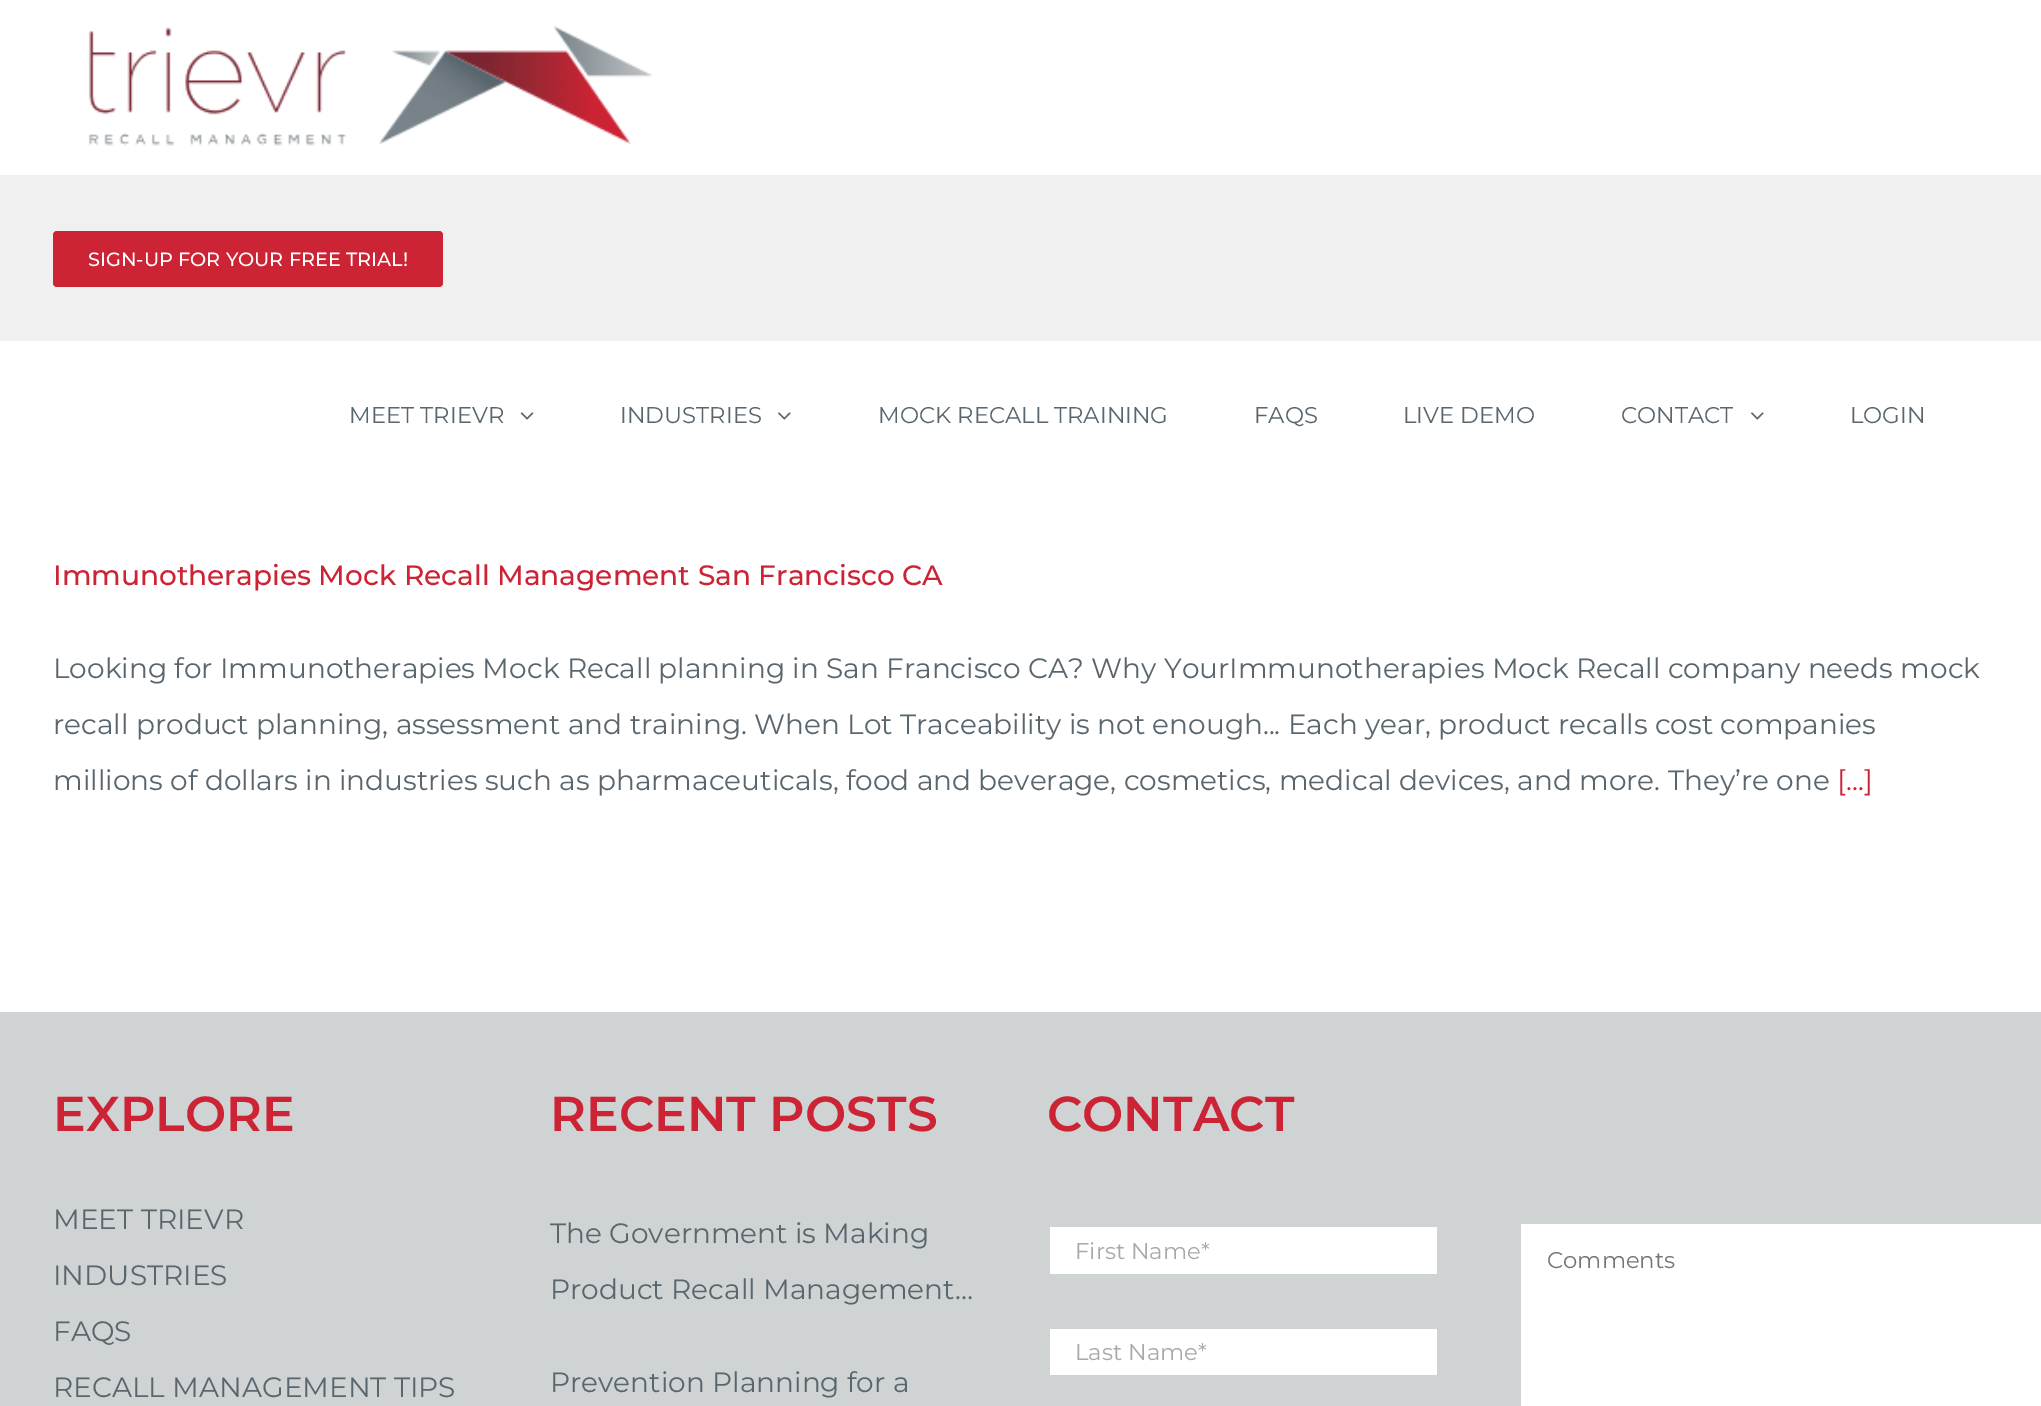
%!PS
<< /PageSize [2041 1406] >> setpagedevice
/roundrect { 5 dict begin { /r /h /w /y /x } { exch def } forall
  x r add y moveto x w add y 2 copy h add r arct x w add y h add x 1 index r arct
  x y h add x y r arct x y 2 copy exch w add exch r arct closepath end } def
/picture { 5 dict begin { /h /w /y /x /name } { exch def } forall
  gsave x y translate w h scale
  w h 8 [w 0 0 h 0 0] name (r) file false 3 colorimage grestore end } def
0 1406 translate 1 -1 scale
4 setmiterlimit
1 setgray
0 0 2041 1406 rectfill
(img1.rgb) 88 26 565 120 picture
0.941 setgray
0 175 2041 166 rectfill
0.8 0.137 0.208 setrgbcolor
53 231 390 56 4 roundrect fill
/Montserrat-Medium [19.25 0 0 -19.25 0 0] selectfont
1 setgray
88 266 moveto (SIGN-UP FOR YOUR FREE TRIAL!) show
/Montserrat-Regular [22.75 0 0 -22.75 0 0] selectfont
0.349 0.4 0.431 setrgbcolor
349 423 moveto (MEET TRIEVR) show
(img2.rgb) 520 412 14 8 picture
620 423 moveto (INDUSTRIES) show
(img3.rgb) 778 412 13 8 picture
878 423 moveto (MOCK RECALL TRAINING) show
1254 423 moveto (FAQS) show
1403 423 moveto (LIVE DEMO) show
1621 423 moveto (CONTACT) show
(img3.rgb) 1751 412 13 8 picture
1850 423 moveto (LOGIN) show
/Montserrat-Medium [28 0 0 -28 0 0] selectfont
0.8 0.137 0.208 setrgbcolor
53 585 moveto (Immunotherapies Mock Recall Management San Francisco CA) show
/Montserrat-Regular [28 0 0 -28 0 0] selectfont
0.349 0.4 0.431 setrgbcolor
53 678 moveto (Looking for Immunotherapies Mock Recall planning in San Francisco CA? Why YourImmunotherapies Mock Recall company needs mock) show
53 734 moveto (recall product planning, assessment and training. When Lot Traceability is not enough... Each year, product recalls cost companies) show
53 790 moveto (millions of dollars in industries such as pharmaceuticals, food and beverage, cosmetics, medical devices, and more. They’re one) show
0.8 0.137 0.208 setrgbcolor
1837 790 moveto ([...]) show
0.816 0.827 0.831 setrgbcolor
0 1012 2041 394 rectfill
/Montserrat-SemiBold [49 0 0 -49 0 0] selectfont
0.8 0.137 0.208 setrgbcolor
53 1131 moveto (EXPLORE) show
/Montserrat-Regular [28 0 0 -28 0 0] selectfont
0.349 0.4 0.431 setrgbcolor
53 1229 moveto (MEET TRIEVR) show
53 1285 moveto (INDUSTRIES) show
53 1341 moveto (FAQS) show
53 1397 moveto (RECALL MANAGEMENT TIPS) show
/Montserrat-SemiBold [49 0 0 -49 0 0] selectfont
0.8 0.137 0.208 setrgbcolor
550 1131 moveto (RECENT POSTS) show
/Montserrat-Regular [28 0 0 -28 0 0] selectfont
0.349 0.4 0.431 setrgbcolor
550 1243 moveto (The Government is Making) show
550 1299 moveto (Product Recall Management…) show
550 1392 moveto (Prevention Planning for a) show
/Montserrat-SemiBold [49 0 0 -49 0 0] selectfont
0.8 0.137 0.208 setrgbcolor
1047 1131 moveto (CONTACT) show
1 setgray
1050 1227 387 47 rectfill
/Montserrat-Regular [22.75 0 0 -22.75 0 0] selectfont
0.667 0.663 0.663 setrgbcolor
1075 1259 moveto (First Name*) show
1 setgray
1050 1329 387 46 rectfill
0.667 0.663 0.663 setrgbcolor
1075 1360 moveto (Last Name*) show
1 setgray
1521 1224 520 182 rectfill
0.459 setgray
1547 1268 moveto (Comments) show
showpage
